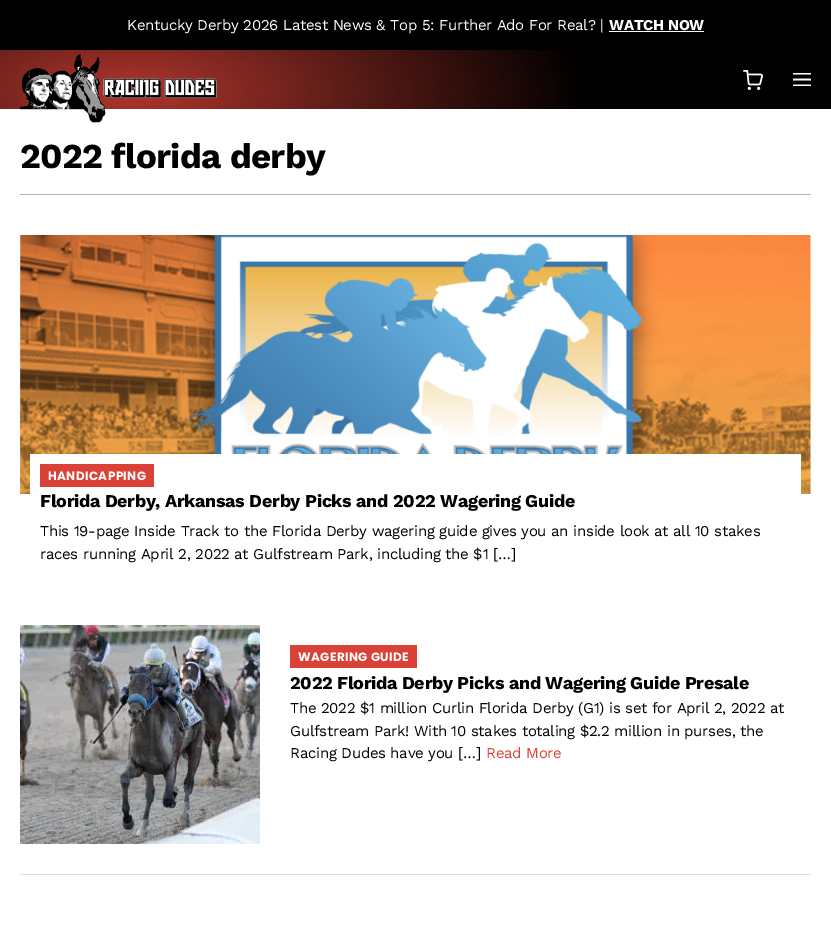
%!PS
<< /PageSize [831 925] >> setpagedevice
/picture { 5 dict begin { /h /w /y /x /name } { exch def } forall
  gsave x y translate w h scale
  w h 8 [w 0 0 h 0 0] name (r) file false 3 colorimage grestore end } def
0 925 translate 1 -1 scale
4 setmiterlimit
1 setgray
0 0 831 925 rectfill
0 setgray
0 0 831 50 rectfill
/WorkSans-Regular [15 0 0 -15 0 0] selectfont
1 setgray
127 30 moveto -0.3 0 (Kentucky Derby 2026 Latest News & Top 5: Further Ado For Real? |) ashow
/WorkSans-Bold [15 0 0 -15 0 0] selectfont
609 30 moveto -0.3 0 (WATCH NOW) ashow
609 31 95 1 rectfill
gsave newpath 0 50 moveto 831 50 lineto 831 109 lineto 0 109 lineto closepath clip newpath 132 92 translate 457 177 scale
<< /ShadingType 3 /ColorSpace /DeviceRGB /Coords [0 0 0 0 0 1] /Extend [true true] /Function << /FunctionType 2 /Domain [0 1] /C0 [0.686 0.208 0.173] /C1 [0 0 0] /N 1 >> >> shfill grestore
(img1.rgb) 20 54 197 69 picture
(img2.rgb) 743 70 20 20 picture
(img3.rgb) 793 73 18 13 picture
0.698 setgray
20 194 791 1 rectfill
/WorkSans-Bold [35 0 0 -35 0 0] selectfont
0 setgray
20 168 moveto -0.75 0 (2022 florida derby) ashow
(img4.rgb) 20 235 791 259 picture
1 setgray
30 454 771 40 rectfill
0.859 0.259 0.216 setrgbcolor
40 464 114 23 rectfill
/Poppins-Bold [12 0 0 -12 0 0] selectfont
1 setgray
48 480 moveto 0.4 0 (HANDICAPPING) ashow
/WorkSans-Bold [18 0 0 -18 0 0] selectfont
0 setgray
40 507 moveto -0.35 0 (Florida Derby, Arkansas Derby Picks and 2022 Wagering Guide) ashow
/WorkSans-Regular [15 0 0 -15 0 0] selectfont
40 536 moveto -0.3 0 (This 19-page Inside Track to the Florida Derby wagering guide gives you an inside look at all 10 stakes) ashow
40 559 moveto -0.3 0 (races running April 2, 2022 at Gulfstream Park, including the $1 […]) ashow
0.867 setgray
20 874 791 1 rectfill
(img5.rgb) 20 625 240 219 picture
0.859 0.259 0.216 setrgbcolor
290 645 127 23 rectfill
/Poppins-Bold [12 0 0 -12 0 0] selectfont
1 setgray
298 661 moveto 0.4 0 (WAGERING GUIDE) ashow
/WorkSans-Bold [18 0 0 -18 0 0] selectfont
0 setgray
290 689 moveto -0.35 0 (2022 Florida Derby Picks and Wagering Guide Presale) ashow
/WorkSans-Regular [15 0 0 -15 0 0] selectfont
290 713 moveto -0.3 0 (The 2022 $1 million Curlin Florida Derby \(G1\) is set for April 2, 2022 at) ashow
290 736 moveto -0.3 0 (Gulfstream Park! With 10 stakes totaling $2.2 million in purses, the) ashow
290 758 moveto -0.3 0 (Racing Dudes have you […]) ashow
0.859 0.259 0.216 setrgbcolor
486 758 moveto -0.3 0 (Read More) ashow
showpage
